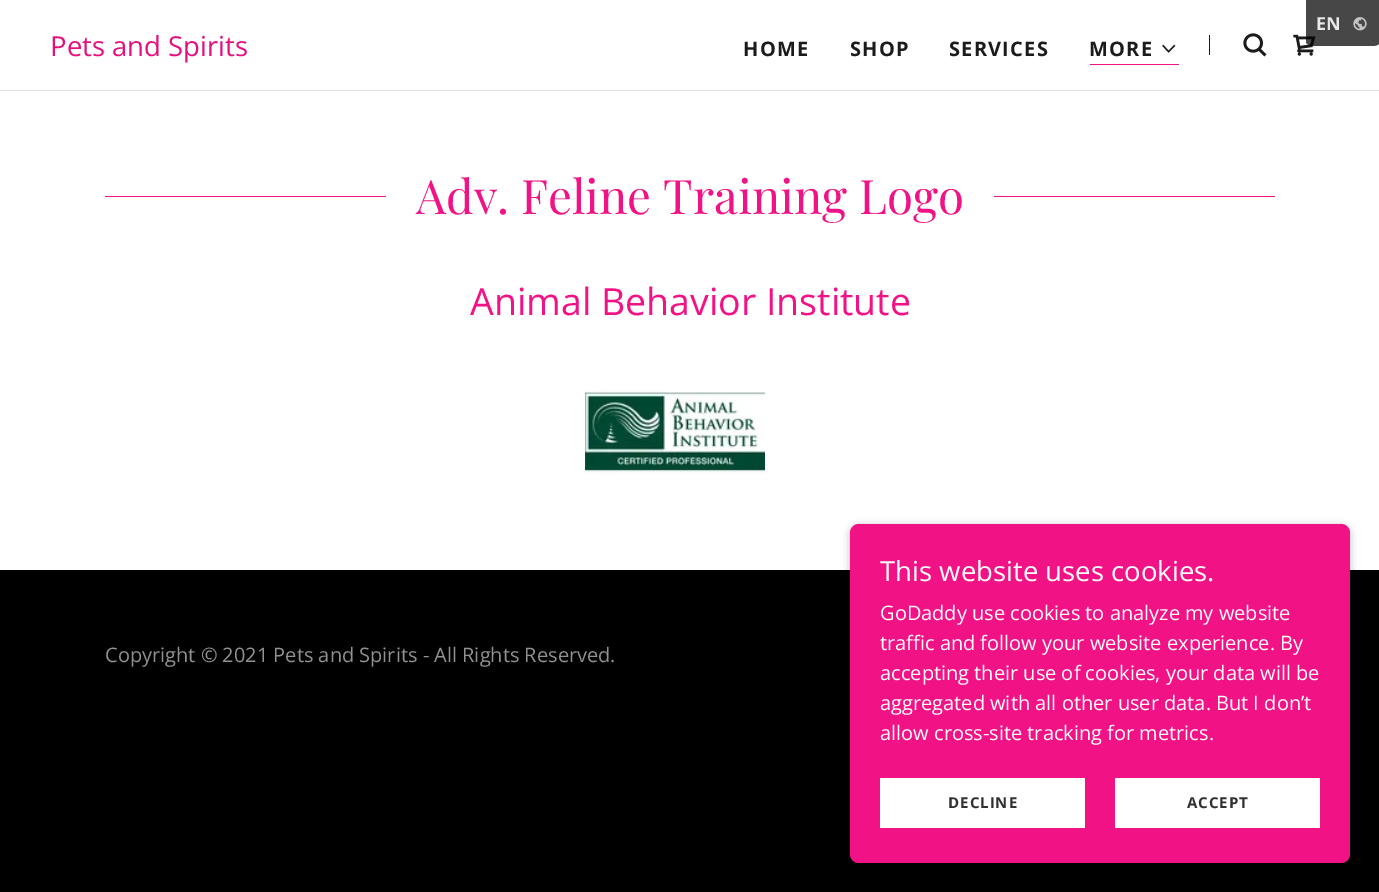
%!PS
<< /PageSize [1379 892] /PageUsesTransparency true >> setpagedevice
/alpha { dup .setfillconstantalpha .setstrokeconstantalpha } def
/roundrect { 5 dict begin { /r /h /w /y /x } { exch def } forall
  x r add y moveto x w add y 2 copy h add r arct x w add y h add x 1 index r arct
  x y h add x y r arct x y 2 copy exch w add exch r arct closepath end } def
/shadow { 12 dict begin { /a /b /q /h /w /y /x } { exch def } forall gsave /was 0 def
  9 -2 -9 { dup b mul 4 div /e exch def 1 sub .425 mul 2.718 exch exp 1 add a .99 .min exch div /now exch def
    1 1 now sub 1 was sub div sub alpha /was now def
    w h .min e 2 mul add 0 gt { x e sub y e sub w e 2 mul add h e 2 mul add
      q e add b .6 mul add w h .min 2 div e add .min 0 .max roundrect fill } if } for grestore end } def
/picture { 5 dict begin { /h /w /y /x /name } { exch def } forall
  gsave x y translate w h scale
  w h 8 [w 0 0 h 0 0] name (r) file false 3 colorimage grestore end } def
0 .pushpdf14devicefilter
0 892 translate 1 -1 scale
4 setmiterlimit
0 setgray
0 0 1379 892 rectfill
1 setgray
0 0 1379 90 rectfill
(img4.rgb) 1293 34 23 22 picture
0.72 alpha
0 setgray
newpath 1306 0 moveto 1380 0 lineto 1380 42 lineto 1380 44 1377 46 1373 46 curveto 1314 46 lineto 1310 46 1306 44 1306 42 curveto closepath fill
/OpenSans-Bold [18 0 0 -18 0 0] selectfont
1 alpha
0.91 setgray
1316 30 moveto (EN) show
(img1.rgb) 1353 17 14 14 picture
/OpenSans-Regular [27.5 0 0 -27.5 0 0] selectfont
0.89 0.063 0.494 setrgbcolor
50 56 moveto (Pets and Spirits) show
/OpenSans-Bold [20 0 0 -20 0 0] selectfont
0.106 setgray
743 56 moveto 1.25 0 (HOME) ashow
850 56 moveto 1.25 0 (SHOP) ashow
949 56 moveto 1.25 0 (SERVICES) ashow
0.945 0.071 0.525 setrgbcolor
1090 64 89 1 rectfill
0.106 setgray
1089 56 moveto 1.25 0 (MORE) ashow
(img2.rgb) 1162 44 14 9 picture
1209 35 1 20 rectfill
(img3.rgb) 1243 33 24 24 picture
0.886 setgray
0 90 1379 1 rectfill
1 setgray
0 91 1379 479 rectfill
0.945 0.071 0.525 setrgbcolor
105 196 281 1 rectfill
/PlayfairDisplay-Regular [47.5 0 0 -47.5 0 0] selectfont
416 214 moveto (Adv. Feline Training Logo) show
994 196 281 1 rectfill
/OpenSans-Regular [37.5 0 0 -37.5 0 0] selectfont
470 315 moveto (Animal Behavior Institute) show
(img5.rgb) 585 390 180 84 picture
/OpenSans-Regular [20 0 0 -20 0 0] selectfont
0.569 setgray
105 662 moveto (Copyright © 2021 Pets and Spirits - All Rights Reserved.) show
0 setgray
850 526 500 339 9 4 0.3 shadow
0.945 0.071 0.525 setrgbcolor
850 524 500 339 9 roundrect fill
/OpenSans-Regular [27.5 0 0 -27.5 0 0] selectfont
1 setgray
880 581 moveto (This website uses cookies.) show
/OpenSans-Regular [20 0 0 -20 0 0] selectfont
880 620 moveto (GoDaddy use cookies to analyze my website) show
880 650 moveto (traffic and follow your website experience. By) show
880 680 moveto (accepting their use of cookies, your data will be) show
880 710 moveto (aggregated with all other user data. But I don’t) show
880 740 moveto (allow cross-site tracking for metrics.) show
880 778 205 50 rectfill
/OpenSans-Bold [15 0 0 -15 0 0] selectfont
0.188 setgray
948 808 moveto 1 0 (DECLINE) ashow
1 setgray
1115 778 205 50 rectfill
0.188 setgray
1187 808 moveto 1 0 (ACCEPT) ashow
.poppdf14devicefilter showpage
